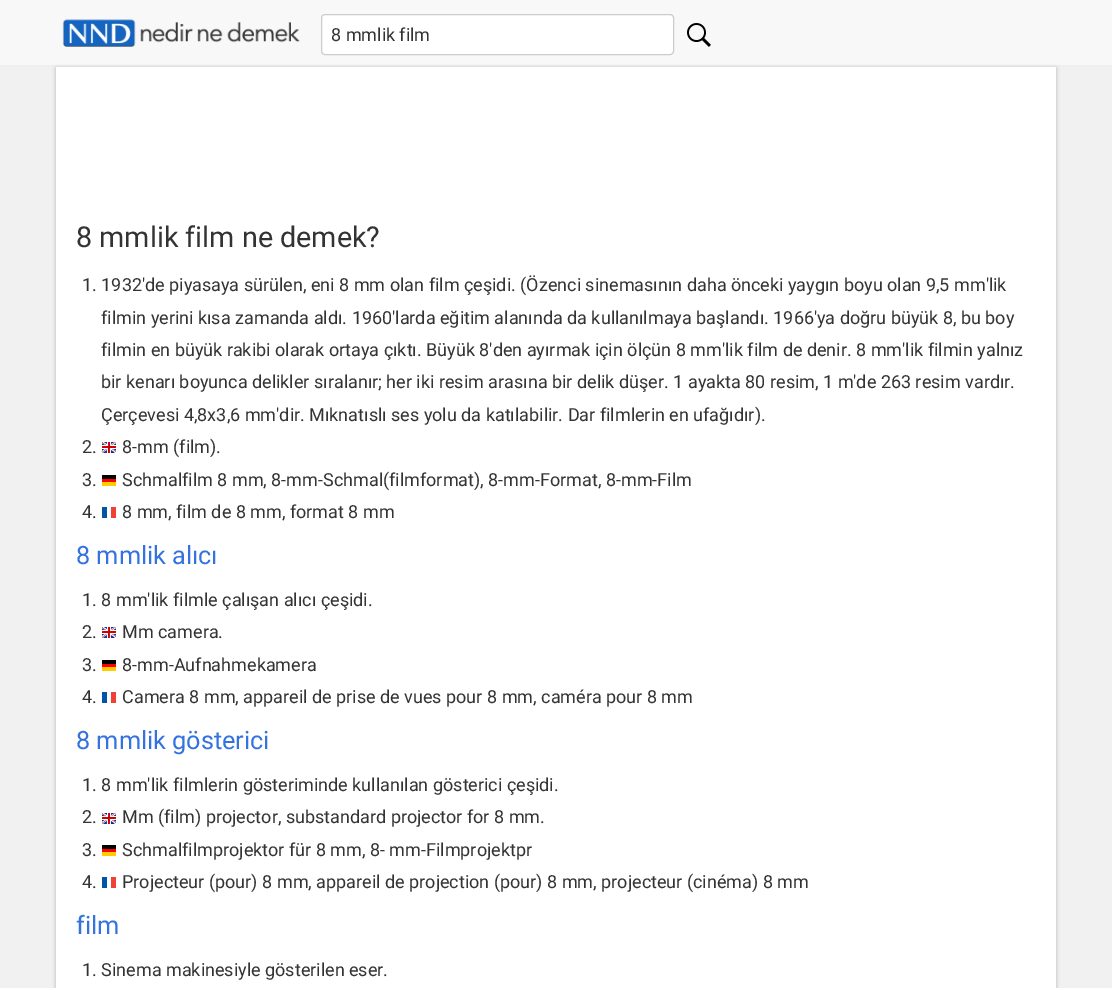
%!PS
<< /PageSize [1112 988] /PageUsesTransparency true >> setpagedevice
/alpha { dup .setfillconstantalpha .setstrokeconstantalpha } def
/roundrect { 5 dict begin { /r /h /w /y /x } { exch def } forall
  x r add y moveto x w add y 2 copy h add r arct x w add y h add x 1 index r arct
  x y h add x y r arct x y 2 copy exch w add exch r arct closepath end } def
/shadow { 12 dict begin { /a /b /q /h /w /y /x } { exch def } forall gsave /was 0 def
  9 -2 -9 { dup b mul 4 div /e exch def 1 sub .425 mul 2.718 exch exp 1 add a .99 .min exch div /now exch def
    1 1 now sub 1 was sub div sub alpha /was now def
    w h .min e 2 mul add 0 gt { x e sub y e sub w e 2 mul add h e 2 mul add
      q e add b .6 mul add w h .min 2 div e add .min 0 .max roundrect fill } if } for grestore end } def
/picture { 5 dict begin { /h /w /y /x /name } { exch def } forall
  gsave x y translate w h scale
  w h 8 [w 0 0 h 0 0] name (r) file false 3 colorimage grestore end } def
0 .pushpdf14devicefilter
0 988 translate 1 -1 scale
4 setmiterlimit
0.945 setgray
0 0 1112 988 rectfill
0.973 setgray
0 0 1112 65 rectfill
0.933 setgray
0 65 1112 1 rectfill
(img1.rgb) 62 19 238 28 picture
1 setgray
321.5 14.5 352 40 3.5 roundrect gsave fill grestore
0.8 setgray
stroke
/Roboto-Regular [18 0 0 -18 0 0] selectfont
0.2 setgray
331 41 moveto (8 mmlik film) show
(img2.rgb) 687 23 24 24 picture
0 setgray
56 68 1000 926 0 2 0.25 shadow
1 setgray
56 67 1000 921 rectfill
/Roboto-Regular [28.75 0 0 -28.75 0 0] selectfont
0.2 setgray
76 247 moveto (8 mmlik film ne demek?) show
/Roboto-Regular [18 0 0 -18 0 0] selectfont
82 291 moveto (1. 1932'de piyasaya sürülen, eni 8 mm olan film çeşidi. \(Özenci sinemasının daha önceki yaygın boyu olan 9,5 mm'lik) show
101 324 moveto (filmin yerini kısa zamanda aldı. 1960'larda eğitim alanında da kullanılmaya başlandı. 1966'ya doğru büyük 8, bu boy) show
101 356 moveto (filmin en büyük rakibi olarak ortaya çıktı. Büyük 8'den ayırmak için ölçün 8 mm'lik film de denir. 8 mm'lik filmin yalnız) show
101 388 moveto (bir kenarı boyunca delikler sıralanır; her iki resim arasına bir delik düşer. 1 ayakta 80 resim, 1 m'de 263 resim vardır.) show
101 421 moveto (Çerçevesi 4,8x3,6 mm'dir. Mıknatıslı ses yolu da katılabilir. Dar filmlerin en ufağıdır\).) show
82 453 moveto (2.) show
(img3.rgb) 102 442 14 11 picture
122 453 moveto (8-mm \(film\).) show
82 486 moveto (3.) show
(img4.rgb) 102 475 14 11 picture
122 486 moveto (Schmalfilm 8 mm, 8-mm-Schmal\(filmformat\), 8-mm-Format, 8-mm-Film) show
82 518 moveto (4.) show
(img5.rgb) 102 507 14 11 picture
122 518 moveto (8 mm, film de 8 mm, format 8 mm) show
/Roboto-Regular [25.25 0 0 -25.25 0 0] selectfont
0.2 0.447 0.875 setrgbcolor
76 564 moveto (8 mmlik alıcı) show
/Roboto-Regular [18 0 0 -18 0 0] selectfont
0.2 setgray
82 606 moveto (1. 8 mm'lik filmle çalışan alıcı çeşidi.) show
82 638 moveto (2.) show
(img3.rgb) 102 627 14 11 picture
122 638 moveto (Mm camera.) show
82 671 moveto (3.) show
(img4.rgb) 102 660 14 11 picture
122 671 moveto (8-mm-Aufnahmekamera) show
82 703 moveto (4.) show
(img5.rgb) 102 692 14 11 picture
122 703 moveto (Camera 8 mm, appareil de prise de vues pour 8 mm, caméra pour 8 mm) show
/Roboto-Regular [25.25 0 0 -25.25 0 0] selectfont
0.2 0.447 0.875 setrgbcolor
76 749 moveto (8 mmlik gösterici) show
/Roboto-Regular [18 0 0 -18 0 0] selectfont
0.2 setgray
82 791 moveto (1. 8 mm'lik filmlerin gösteriminde kullanılan gösterici çeşidi.) show
82 823 moveto (2.) show
(img3.rgb) 102 813 14 11 picture
122 823 moveto (Mm \(film\) projector, substandard projector for 8 mm.) show
82 856 moveto (3.) show
(img4.rgb) 102 845 14 11 picture
122 856 moveto (Schmalfilmprojektor für 8 mm, 8- mm-Filmprojektpr) show
82 888 moveto (4.) show
(img5.rgb) 102 877 14 11 picture
122 888 moveto (Projecteur \(pour\) 8 mm, appareil de projection \(pour\) 8 mm, projecteur \(cinéma\) 8 mm) show
/Roboto-Regular [25.25 0 0 -25.25 0 0] selectfont
0.2 0.447 0.875 setrgbcolor
76 934 moveto (film) show
/Roboto-Regular [18 0 0 -18 0 0] selectfont
0.2 setgray
82 976 moveto (1. Sinema makinesiyle gösterilen eser.) show
.poppdf14devicefilter showpage
